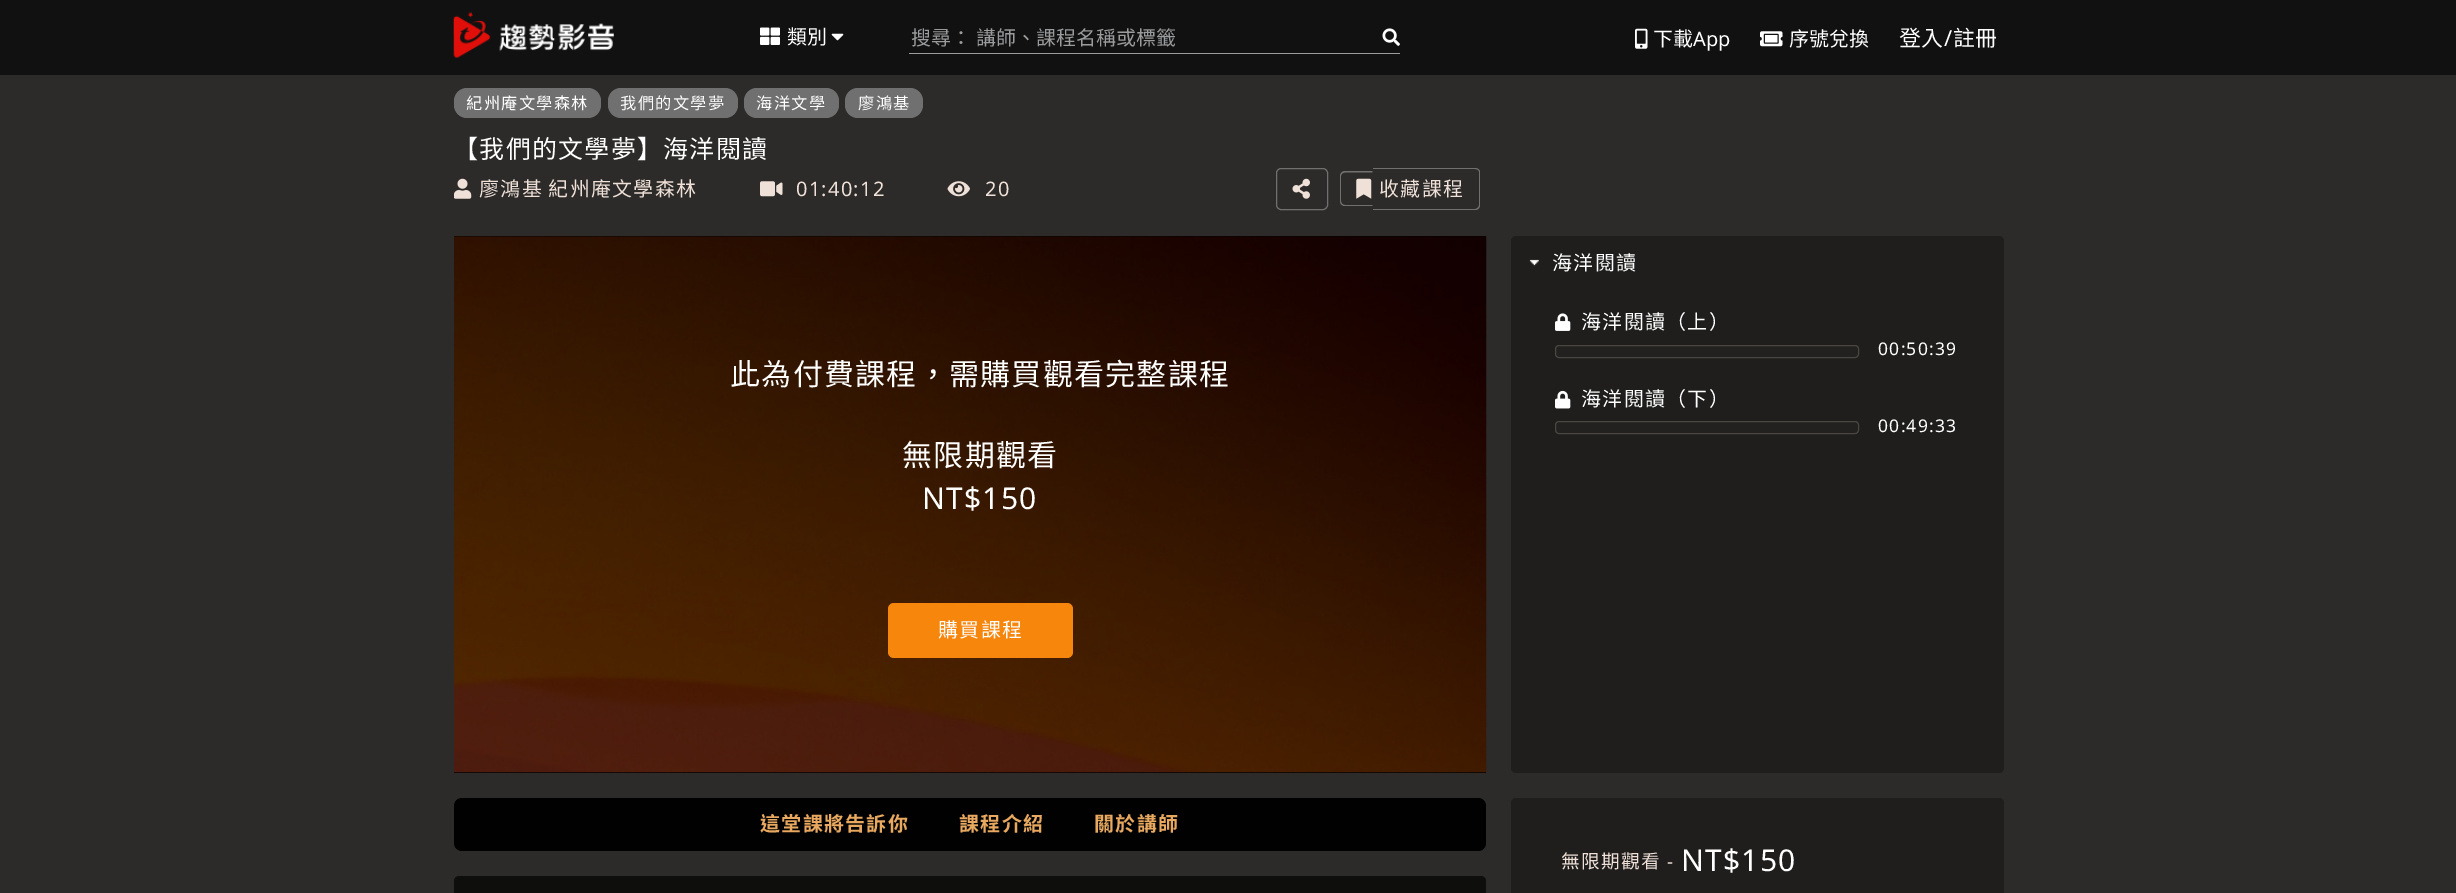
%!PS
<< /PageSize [2456 893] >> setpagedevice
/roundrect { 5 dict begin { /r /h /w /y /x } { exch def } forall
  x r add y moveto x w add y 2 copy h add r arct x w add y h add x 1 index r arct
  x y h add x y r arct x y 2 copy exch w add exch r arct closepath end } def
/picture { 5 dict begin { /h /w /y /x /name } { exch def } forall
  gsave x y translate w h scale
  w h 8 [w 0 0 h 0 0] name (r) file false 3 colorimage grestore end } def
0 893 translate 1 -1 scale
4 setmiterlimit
0.173 0.169 0.161 setrgbcolor
0 0 2456 893 rectfill
0.067 setgray
0 0 2456 75 rectfill
(img1.rgb) 453 12 161 46 picture
(img2.rgb) 760 27 20 18 picture
/NotoSansTC-Regular [20 0 0 -20 0 0] selectfont
1 setgray
787 44 moveto (類別) show
(img3.rgb) 831 33 13 8 picture
0.604 0.608 0.616 setrgbcolor
909 53 491 1 rectfill
911 45 moveto 1 0 32 (搜尋： 講師、課程名稱或標籤) widthshow
(img4.rgb) 1382 28 18 18 picture
(img5.rgb) 1635 28 13 21 picture
1 setgray
1653 46 moveto (下載) show
/NotoSans-Regular [20 0 0 -20 0 0] selectfont
1693 46 moveto (App) show
(img6.rgb) 1760 31 23 16 picture
/NotoSansTC-Regular [20 0 0 -20 0 0] selectfont
1789 46 moveto (序號兌換) show
/NotoSansTC-Regular [22 0 0 -22 0 0] selectfont
1899 46 moveto (登入) show
/NotoSans-Regular [22 0 0 -22 0 0] selectfont
1944 46 moveto (/) show
/NotoSansTC-Regular [22 0 0 -22 0 0] selectfont
1953 46 moveto (註冊) show
0.439 setgray
454 88 147 30 13 roundrect fill
/NotoSansTC-Regular [16.25 0 0 -16.25 0 0] selectfont
1 setgray
466 109 moveto 1.25 0 (紀州庵文學森林) ashow
0.439 setgray
608 88 130 30 13 roundrect fill
1 setgray
620 109 moveto 1.25 0 (我們的文學夢) ashow
0.439 setgray
744 88 95 30 13 roundrect fill
1 setgray
756 109 moveto 1.25 0 (海洋文學) ashow
0.439 setgray
845 88 78 30 13 roundrect fill
1 setgray
858 109 moveto 1.25 0 (廖鴻基) ashow
/NotoSansTC-Regular [25 0 0 -25 0 0] selectfont
453 158 moveto 1.25 0 (【我們的文學夢】海洋閱讀) ashow
(img7.rgb) 454 178 18 21 picture
/NotoSansTC-Regular [20 0 0 -20 0 0] selectfont
0.941 0.882 0.847 setrgbcolor
479 196 moveto 1.25 0 (廖鴻基 紀州庵文學森林) ashow
(img8.rgb) 760 181 23 16 picture
/NotoSans-Regular [20 0 0 -20 0 0] selectfont
796 196 moveto 1.25 0 (01:40:12) ashow
(img9.rgb) 947 181 23 16 picture
985 196 moveto 1.25 0 (20) ashow
0.443 0.435 0.435 setrgbcolor
1276.5 168.5 51 41 4.5 roundrect stroke
(img10.rgb) 1292 178 18 21 picture
newpath 1345 171 moveto 1372.5 171 lineto 1372.5 206 lineto 1345 206 lineto 1342 206 1340 204 1340 201 curveto 1340 176 lineto 1340 173.5 1342 171 1345 171 curveto closepath 1345 172.5 moveto 1372.5 172.5 lineto 1372.5 205 lineto 1345 205 lineto 1343 205 1341 203.5 1341 201 curveto 1341 176 lineto 1341 174 1343 172.5 1345 172.5 curveto closepath eofill
1373 168 6 1 rectfill
1373 209 6 1 rectfill
newpath 1379 168 moveto 1475 168 lineto 1478 168 1480 170 1480 172 curveto 1480 205 lineto 1480 208 1478 210 1475 210 curveto 1379 210 lineto closepath 1379 169 moveto 1475 169 lineto 1477 169 1479 170 1479 172 curveto 1479 205 lineto 1479 207 1477 209 1475 209 curveto 1379 209 lineto closepath eofill
(img11.rgb) 1356 178 16 21 picture
/NotoSansTC-Regular [20 0 0 -20 0 0] selectfont
0.941 0.882 0.847 setrgbcolor
1379 196 moveto 1.25 0 (收藏課程) ashow
0.008 setgray
454 236 1032 537 rectfill
(img12.rgb) 454 236 1033 537 picture
/NotoSansTC-Regular [30 0 0 -30 0 0] selectfont
1 setgray
730 385 moveto 1.25 0 (此為付費課程，需購買觀看完整課程) ashow
902 466 moveto 1.25 0 (無限期觀看) ashow
/NotoSans-Regular [30 0 0 -30 0 0] selectfont
922 509 moveto 1.25 0 (NT$150) ashow
0.969 0.525 0.051 setrgbcolor
888 603 185 55 6 roundrect fill
/NotoSansTC-Regular [20 0 0 -20 0 0] selectfont
1 setgray
938 637 moveto 1.25 0 (購買課程) ashow
0.122 0.118 0.114 setrgbcolor
1511 236 493 537 5 roundrect fill
1511 239 493 1 rectfill
(img13.rgb) 1529 259 10 7 picture
1 setgray
1552 270 moveto 1.25 0 (海洋閱讀) ashow
(img14.rgb) 1555 313 16 18 picture
1581 329 moveto 1.25 0 (海洋閱讀（上）) ashow
0.133 0.129 0.122 setrgbcolor
1555.5 345.5 303 12 3.5 roundrect gsave fill grestore
0.29 0.278 0.263 setrgbcolor
stroke
/NotoSans-Regular [17.5 0 0 -17.5 0 0] selectfont
1 setgray
1878 355 moveto 1.25 0 (00:50:39) ashow
(img15.rgb) 1555 390 16 19 picture
/NotoSansTC-Regular [20 0 0 -20 0 0] selectfont
1581 406 moveto 1.25 0 (海洋閱讀（下）) ashow
0.133 0.129 0.122 setrgbcolor
1555.5 421.5 303 12 3.5 roundrect gsave fill grestore
0.29 0.278 0.263 setrgbcolor
stroke
/NotoSans-Regular [17.5 0 0 -17.5 0 0] selectfont
1 setgray
1878 432 moveto 1.25 0 (00:49:33) ashow
0.004 setgray
454 798 1032 53 8 roundrect fill
/NotoSansTC-Bold [20 0 0 -20 0 0] selectfont
0.91 0.659 0.373 setrgbcolor
760 831 moveto 1.25 0 (這堂課將告訴你) ashow
959 831 moveto 1.25 0 (課程介紹) ashow
1094 831 moveto 1.25 0 (關於講師) ashow
0.055 0.055 0.051 setrgbcolor
454 876 1032 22 5 roundrect fill
0.122 0.118 0.114 setrgbcolor
1511 798 493 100 5 roundrect fill
/NotoSansTC-Regular [18.75 0 0 -18.75 0 0] selectfont
0.941 0.882 0.847 setrgbcolor
1561 868 moveto 1.25 0 (無限期觀看) ashow
/NotoSans-Regular [18.75 0 0 -18.75 0 0] selectfont
1667 868 moveto 1.25 0 (-) ashow
/NotoSans-Regular [30 0 0 -30 0 0] selectfont
1 setgray
1681 871 moveto 1.25 0 (NT$150) ashow
showpage
